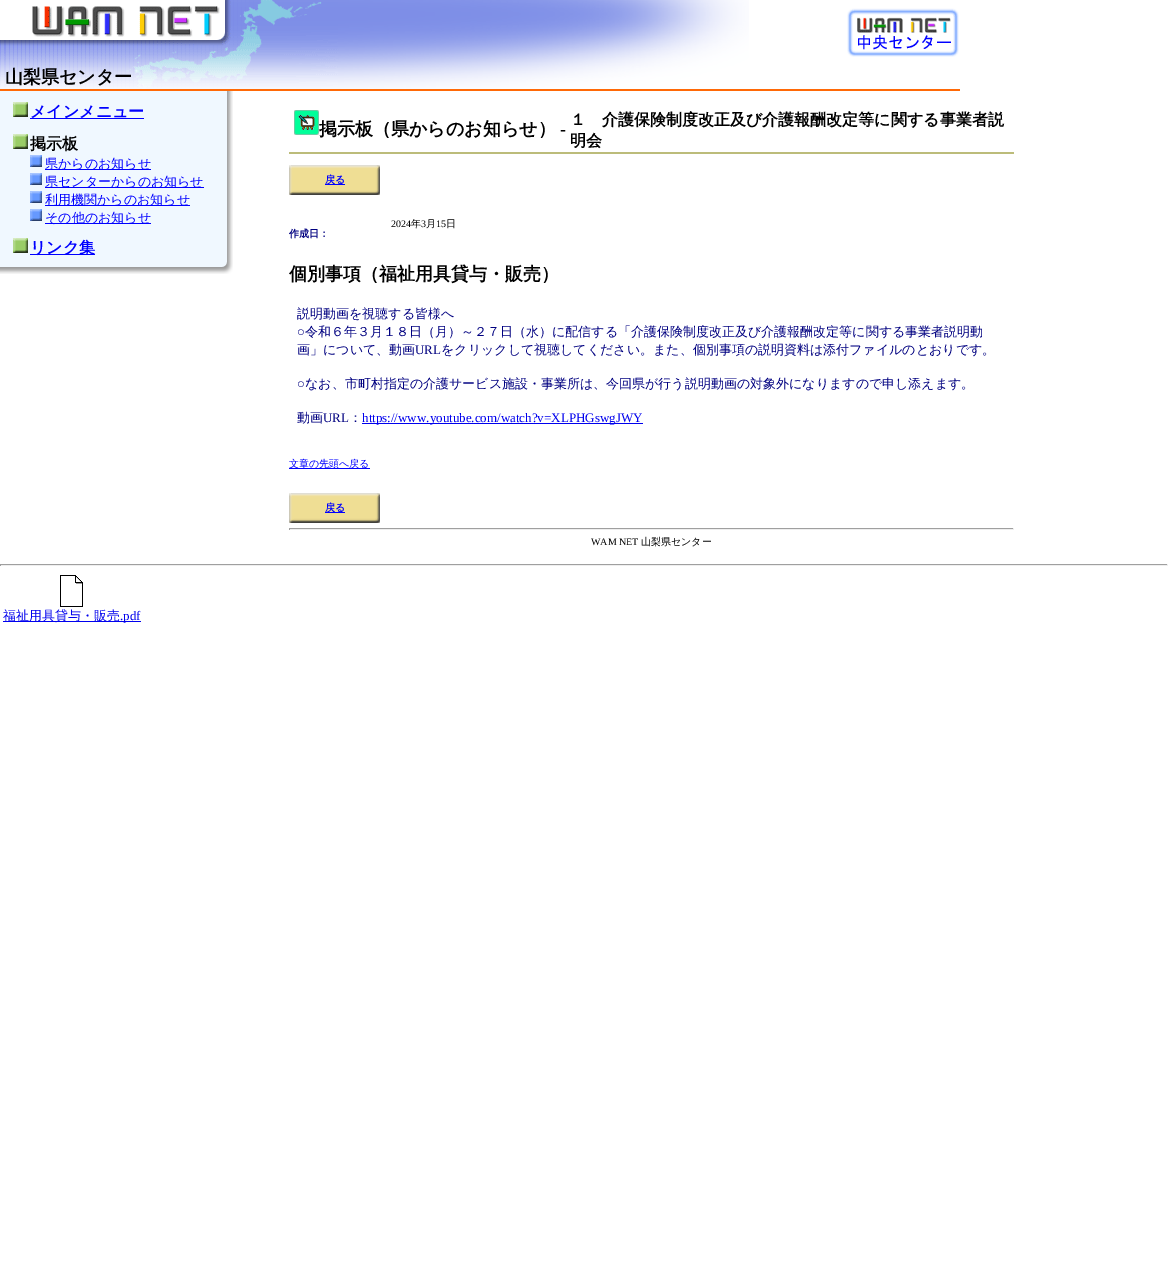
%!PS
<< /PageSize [1168 1285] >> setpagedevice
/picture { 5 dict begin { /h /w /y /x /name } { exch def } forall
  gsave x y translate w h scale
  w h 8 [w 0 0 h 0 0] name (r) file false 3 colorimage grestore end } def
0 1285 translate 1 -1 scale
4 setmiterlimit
1 setgray
0 0 1168 1285 rectfill
(img1.rgb) 0 0 338 89 picture
/WenQuanYiZenHei-Bold [18 0 0 -18 0 0] selectfont
0 setgray
5 83 moveto (山梨県センター) show
(img2.rgb) 338 0 411 89 picture
(img3.rgb) 847 8 112 49 picture
1 0.412 0.027 setrgbcolor
0 89 960 2 rectfill
(img4.rgb) 0 91 233 11 picture
0.941 0.973 1 setrgbcolor
0 102 30 21 rectfill
(img5.rgb) 13 102 15 15 picture
(img6.rgb) 30 102 203 21 picture
0 0 1 setrgbcolor
30 118 114 1 rectfill
/WenQuanYiZenHei-Bold [16 0 0 -16 0 0] selectfont
30 117 moveto (メインメニュー) show
(img4.rgb) 0 123 233 11 picture
0.941 0.973 1 setrgbcolor
0 134 30 93 rectfill
(img5.rgb) 13 134 15 15 picture
(img6.rgb) 30 134 203 21 picture
0 setgray
30 149 moveto (掲示板) show
0.941 0.973 1 setrgbcolor
30 155 15 72 rectfill
(img7.rgb) 30 155 12 12 picture
(img8.rgb) 45 155 188 18 picture
0 0 1 setrgbcolor
45 169 106 1 rectfill
/WenQuanYiZenHei-Medium [13 0 0 -13 0 0] selectfont
45 168 moveto (県からのお知らせ) show
(img7.rgb) 30 173 12 12 picture
(img8.rgb) 45 173 188 18 picture
45 187 159 1 rectfill
45 186 moveto (県センターからのお知らせ) show
(img7.rgb) 30 191 12 12 picture
(img8.rgb) 45 191 188 18 picture
45 205 145 1 rectfill
45 204 moveto (利用機関からのお知らせ) show
(img7.rgb) 30 209 12 12 picture
(img8.rgb) 45 209 188 18 picture
45 223 106 1 rectfill
45 222 moveto (その他のお知らせ) show
(img4.rgb) 0 227 233 11 picture
0.941 0.973 1 setrgbcolor
0 238 30 21 rectfill
(img5.rgb) 13 238 15 15 picture
(img6.rgb) 30 238 203 21 picture
0 0 1 setrgbcolor
30 254 65 1 rectfill
/WenQuanYiZenHei-Bold [16 0 0 -16 0 0] selectfont
30 253 moveto (リンク集) show
(img9.rgb) 0 259 233 15 picture
(img10.rgb) 294 110 25 25 picture
/WenQuanYiZenHei-Bold [18 0 0 -18 0 0] selectfont
0 setgray
319 135 moveto (掲示板（県からのお知らせ）) show
/LiberationSerif-Bold [18 0 0 -18 0 0] selectfont
560 135 moveto (-) show
/WenQuanYiZenHei-Bold [16 0 0 -16 0 0] selectfont
570 125 moveto (１　介護保険制度改正及び介護報酬改定等に関する事業者説) show
570 146 moveto (明会) show
0.737 0.737 0.478 setrgbcolor
289 152 725 2 rectfill
(img11.rgb) 289 165 91 30 picture
0 0 1 setrgbcolor
325 184 20 1 rectfill
/WenQuanYiZenHei-Bold [10 0 0 -10 0 0] selectfont
325 183 moveto (戻る) show
/LiberationSerif-Regular [10 0 0 -10 0 0] selectfont
0 setgray
391 227 moveto (2024) show
/WenQuanYiZenHei-Medium [10 0 0 -10 0 0] selectfont
411 227 moveto (年) show
/LiberationSerif-Regular [10 0 0 -10 0 0] selectfont
421 227 moveto (3) show
/WenQuanYiZenHei-Medium [10 0 0 -10 0 0] selectfont
426 227 moveto (月) show
/LiberationSerif-Regular [10 0 0 -10 0 0] selectfont
436 227 moveto (15) show
/WenQuanYiZenHei-Medium [10 0 0 -10 0 0] selectfont
446 227 moveto (日) show
/WenQuanYiZenHei-Bold [10 0 0 -10 0 0] selectfont
0 0 0.502 setrgbcolor
289 237 moveto (作成日：) show
/WenQuanYiZenHei-Bold [18 0 0 -18 0 0] selectfont
0 setgray
289 280 moveto (個別事項（福祉用具貸与・販売）) show
/WenQuanYiZenHei-Medium [13 0 0 -13 0 0] selectfont
0 0 0.502 setrgbcolor
297 318 moveto (説明動画を視聴する皆様へ) show
/LiberationSerif-Regular [13 0 0 -13 0 0] selectfont
297 336 moveto (○) show
/WenQuanYiZenHei-Medium [13 0 0 -13 0 0] selectfont
305 336 moveto (令和６年３月１８日（月）～２７日（水）に配信する「介護保険制度改正及び介護報酬改定等に関する事業者説明動) show
297 354 moveto (画」について、動画) show
/LiberationSerif-Regular [13 0 0 -13 0 0] selectfont
415 354 moveto (URL) show
/WenQuanYiZenHei-Medium [13 0 0 -13 0 0] selectfont
441 354 moveto (をクリックして視聴してください。また、個別事項の説明資料は添付ファイルのとおりです。) show
/LiberationSerif-Regular [13 0 0 -13 0 0] selectfont
297 388 moveto (○) show
/WenQuanYiZenHei-Medium [13 0 0 -13 0 0] selectfont
305 388 moveto (なお、市町村指定の介護サービス施設・事業所は、今回県が行う説明動画の対象外になりますので申し添えます。) show
297 422 moveto (動画) show
/LiberationSerif-Regular [13 0 0 -13 0 0] selectfont
323 422 moveto (URL) show
/WenQuanYiZenHei-Medium [13 0 0 -13 0 0] selectfont
349 422 moveto (：) show
0 0 0.933 setrgbcolor
362 423 281 1 rectfill
/LiberationSerif-Regular [13 0 0 -13 0 0] selectfont
362 422 moveto (https://www.youtube.com/watch?v=XLPHGswgJWY) show
0 0 1 setrgbcolor
289 468 81 1 rectfill
/WenQuanYiZenHei-Medium [10 0 0 -10 0 0] selectfont
289 467 moveto (文章の先頭へ戻る) show
(img11.rgb) 289 493 91 30 picture
325 512 20 1 rectfill
/WenQuanYiZenHei-Bold [10 0 0 -10 0 0] selectfont
325 511 moveto (戻る) show
0.624 setgray
289 528 725 1 rectfill
0.933 setgray
1013 528 1 2 rectfill
289 529 725 1 rectfill
0.624 setgray
289 528 1 2 rectfill
/LiberationSerif-Regular [10 0 0 -10 0 0] selectfont
0 setgray
591 545 moveto (WAM NET) show
/WenQuanYiZenHei-Medium [10 0 0 -10 0 0] selectfont
641 545 moveto (山梨県センター) show
0.624 setgray
0 564 1168 1 rectfill
0.933 setgray
1167 564 1 2 rectfill
0 565 1168 1 rectfill
0.624 setgray
0 564 1 2 rectfill
(img12.rgb) 60 575 23 32 picture
0 0 0.933 setrgbcolor
3 621 138 1 rectfill
/WenQuanYiZenHei-Medium [13 0 0 -13 0 0] selectfont
3 620 moveto (福祉用具貸与・販売) show
/LiberationSerif-Regular [13 0 0 -13 0 0] selectfont
120 620 moveto (.pdf) show
showpage
